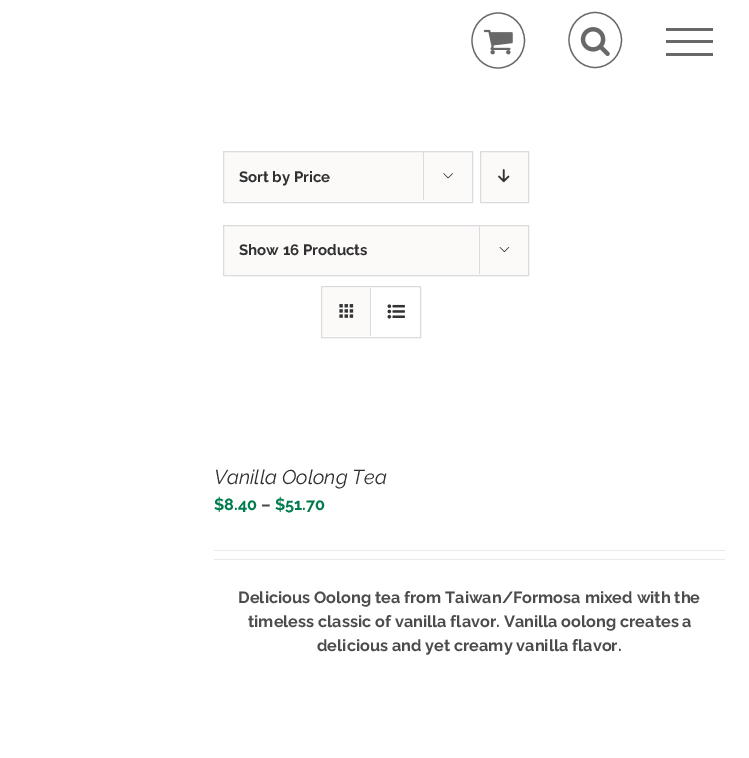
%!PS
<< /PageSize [749 758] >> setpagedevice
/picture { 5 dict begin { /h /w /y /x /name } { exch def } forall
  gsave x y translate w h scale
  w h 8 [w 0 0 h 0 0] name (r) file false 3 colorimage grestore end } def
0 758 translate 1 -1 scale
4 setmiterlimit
1 setgray
0 0 749 758 rectfill
0.408 setgray
1.2 setlinewidth
newpath 498 13 moveto 512.5 13 524.5 25.5 524.5 40.5 curveto 524.5 56 512.5 68 498 68 curveto 483.5 68 472 56 472 40.5 curveto 472 25.5 483.5 13 498 13 curveto closepath stroke
(img1.rgb) 483 29 30 26 picture
newpath 595 12.5 moveto 609.5 12.5 621.5 25 621.5 40 curveto 621.5 55 609.5 67.5 595 67.5 curveto 580.5 67.5 569 55 569 40 curveto 569 25 580.5 12.5 595 12.5 curveto closepath stroke
(img2.rgb) 580 27 30 29 picture
666 28 47 3 rectfill
666 40 47 3 rectfill
666 53 47 3 rectfill
0.984 0.98 0.976 setrgbcolor
newpath 223.5 151.5 moveto 472.5 151.5 lineto 472.5 202.5 lineto 223.5 202.5 lineto closepath gsave fill grestore
0.859 setgray
1 setlinewidth
stroke
/Raleway-Bold [15 0 0 -15 0 0] selectfont
0.188 setgray
239 182 moveto (Sort by Price) show
0.859 setgray
423 151 1 49 rectfill
(img3.rgb) 443 173 10 6 picture
0.984 0.98 0.976 setrgbcolor
newpath 480.5 151.5 moveto 528.5 151.5 lineto 528.5 202.5 lineto 480.5 202.5 lineto closepath gsave fill grestore
0.859 setgray
stroke
(img4.rgb) 498 169 12 14 picture
0.984 0.98 0.976 setrgbcolor
newpath 223.5 225.5 moveto 528.5 225.5 lineto 528.5 275.5 lineto 223.5 275.5 lineto closepath gsave fill grestore
0.859 setgray
stroke
0.188 setgray
239 255 moveto (Show 16 Products) show
0.859 setgray
479 225 1 49 rectfill
(img5.rgb) 499 247 11 6 picture
321.5 286.5 99 51 rectstroke
0.984 0.98 0.976 setrgbcolor
323 288 47 48 rectfill
0.859 setgray
370 288 1 48 rectfill
(img6.rgb) 339 304 15 14 picture
(img7.rgb) 387 304 18 15 picture
/Raleway-Italic [20 0 0 -20 0 0] selectfont
0.188 setgray
214 484 moveto (Vanilla Oolong Tea) show
/Raleway-Bold [16.25 0 0 -16.25 0 0] selectfont
0 0.486 0.298 setrgbcolor
214 510 moveto ($8.40) show
0.298 setgray
261 510 moveto (–) show
0 0.486 0.298 setrgbcolor
275 510 moveto ($51.70) show
0.922 0.918 0.918 setrgbcolor
214 550 511 1 rectfill
214 559 511 1 rectfill
0.298 setgray
238 603 moveto (Delicious Oolong tea from Taiwan/Formosa mixed with the) show
248 627 moveto (timeless classic of vanilla flavor. Vanilla oolong creates a) show
317 651 moveto (delicious and yet creamy vanilla flavor.) show
showpage
